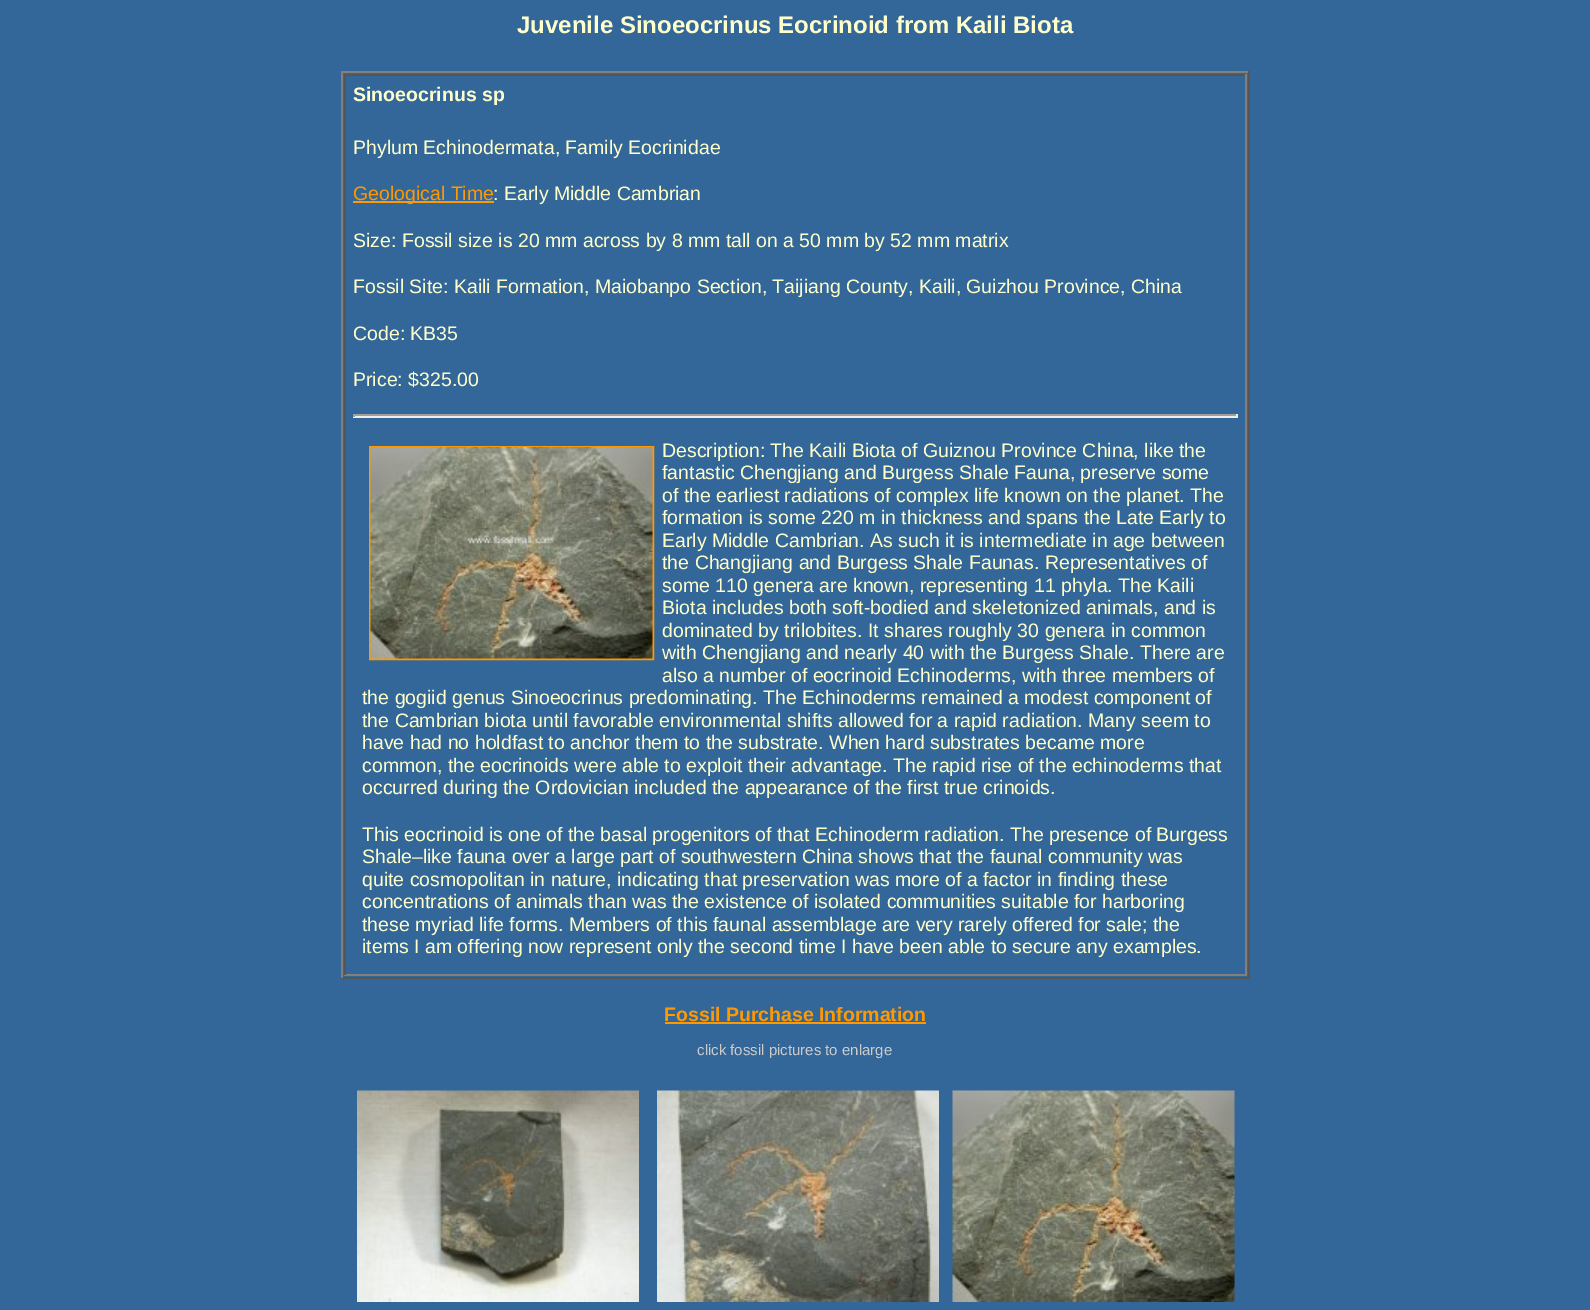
%!PS
<< /PageSize [1590 1310] >> setpagedevice
/picture { 5 dict begin { /h /w /y /x /name } { exch def } forall
  gsave x y translate w h scale
  w h 8 [w 0 0 h 0 0] name (r) file false 3 colorimage grestore end } def
0 1310 translate 1 -1 scale
4 setmiterlimit
0.2 0.4 0.6 setrgbcolor
0 0 1590 1310 rectfill
/LiberationSans-Bold [24 0 0 -24 0 0] selectfont
1 1 0.8 setrgbcolor
517 33 moveto (Juvenile Sinoeocrinus Eocrinoid from Kaili Biota) show
0.502 setgray
341 71 909 2 rectfill
0.333 setgray
1248 71 2 907 rectfill
341 977 909 2 rectfill
0.502 setgray
341 71 2 907 rectfill
0.333 setgray
344 74 903 2 rectfill
0.502 setgray
1245 74 2 901 rectfill
344 974 903 2 rectfill
0.333 setgray
344 74 2 901 rectfill
/LiberationSans-Bold [19.5 0 0 -19.5 0 0] selectfont
1 1 0.8 setrgbcolor
353 101 moveto (Sinoeocrinus sp) show
/LiberationSans-Regular [19.5 0 0 -19.5 0 0] selectfont
353 154 moveto (Phylum Echinodermata, Family Eocrinidae) show
1 0.6 0 setrgbcolor
353 201 141 2 rectfill
353 200 moveto (Geological Time) show
1 1 0.8 setrgbcolor
493 200 moveto (: Early Middle Cambrian) show
353 247 moveto (Size: Fossil size is 20 mm across by 8 mm tall on a 50 mm by 52 mm matrix) show
353 293 moveto (Fossil Site: Kaili Formation, Maiobanpo Section, Taijiang County, Kaili, Guizhou Province, China) show
353 340 moveto (Code: KB35) show
353 386 moveto (Price: $325.00) show
0.624 setgray
353 414 885 2 rectfill
0.933 setgray
1236 414 2 3 rectfill
353 416 885 2 rectfill
0.624 setgray
353 414 2 3 rectfill
1 0.6 0 setrgbcolor
2 setlinewidth
370 447 283 212 rectstroke
(img1.rgb) 370 447 283 212 picture
1 1 0.8 setrgbcolor
662 457 moveto (Description: The Kaili Biota of Guiznou Province China, like the) show
662 479 moveto (fantastic Chengjiang and Burgess Shale Fauna, preserve some) show
662 502 moveto (of the earliest radiations of complex life known on the planet. The) show
662 524 moveto (formation is some 220 m in thickness and spans the Late Early to) show
662 547 moveto (Early Middle Cambrian. As such it is intermediate in age between) show
662 569 moveto (the Changjiang and Burgess Shale Faunas. Representatives of) show
662 592 moveto (some 110 genera are known, representing 11 phyla. The Kaili) show
662 614 moveto (Biota includes both soft-bodied and skeletonized animals, and is) show
662 637 moveto (dominated by trilobites. It shares roughly 30 genera in common) show
662 659 moveto (with Chengjiang and nearly 40 with the Burgess Shale. There are) show
662 682 moveto (also a number of eocrinoid Echinoderms, with three members of) show
362 704 moveto (the gogiid genus Sinoeocrinus predominating. The Echinoderms remained a modest component of) show
362 727 moveto (the Cambrian biota until favorable environmental shifts allowed for a rapid radiation. Many seem to) show
362 749 moveto (have had no holdfast to anchor them to the substrate. When hard substrates became more) show
362 772 moveto (common, the eocrinoids were able to exploit their advantage. The rapid rise of the echinoderms that) show
362 794 moveto (occurred during the Ordovician included the appearance of the first true crinoids.) show
362 841 moveto (This eocrinoid is one of the basal progenitors of that Echinoderm radiation. The presence of Burgess) show
362 863 moveto (Shale–like fauna over a large part of southwestern China shows that the faunal community was) show
362 886 moveto (quite cosmopolitan in nature, indicating that preservation was more of a factor in finding these) show
362 908 moveto (concentrations of animals than was the existence of isolated communities suitable for harboring) show
362 931 moveto (these myriad life forms. Members of this faunal assemblage are very rarely offered for sale; the) show
362 953 moveto (items I am offering now represent only the second time I have been able to secure any examples.) show
/LiberationSans-Bold [19.5 0 0 -19.5 0 0] selectfont
1 0.6 0 setrgbcolor
664 1021 moveto (Fossil Purchase Information) show
665 1022 261 2 rectfill
/LiberationSans-Regular [15 0 0 -15 0 0] selectfont
0.8 setgray
697 1055 moveto (click fossil pictures to enlarge) show
(img2.rgb) 357 1090 282 212 picture
(img3.rgb) 657 1090 282 212 picture
(img4.rgb) 952 1090 283 212 picture
showpage
